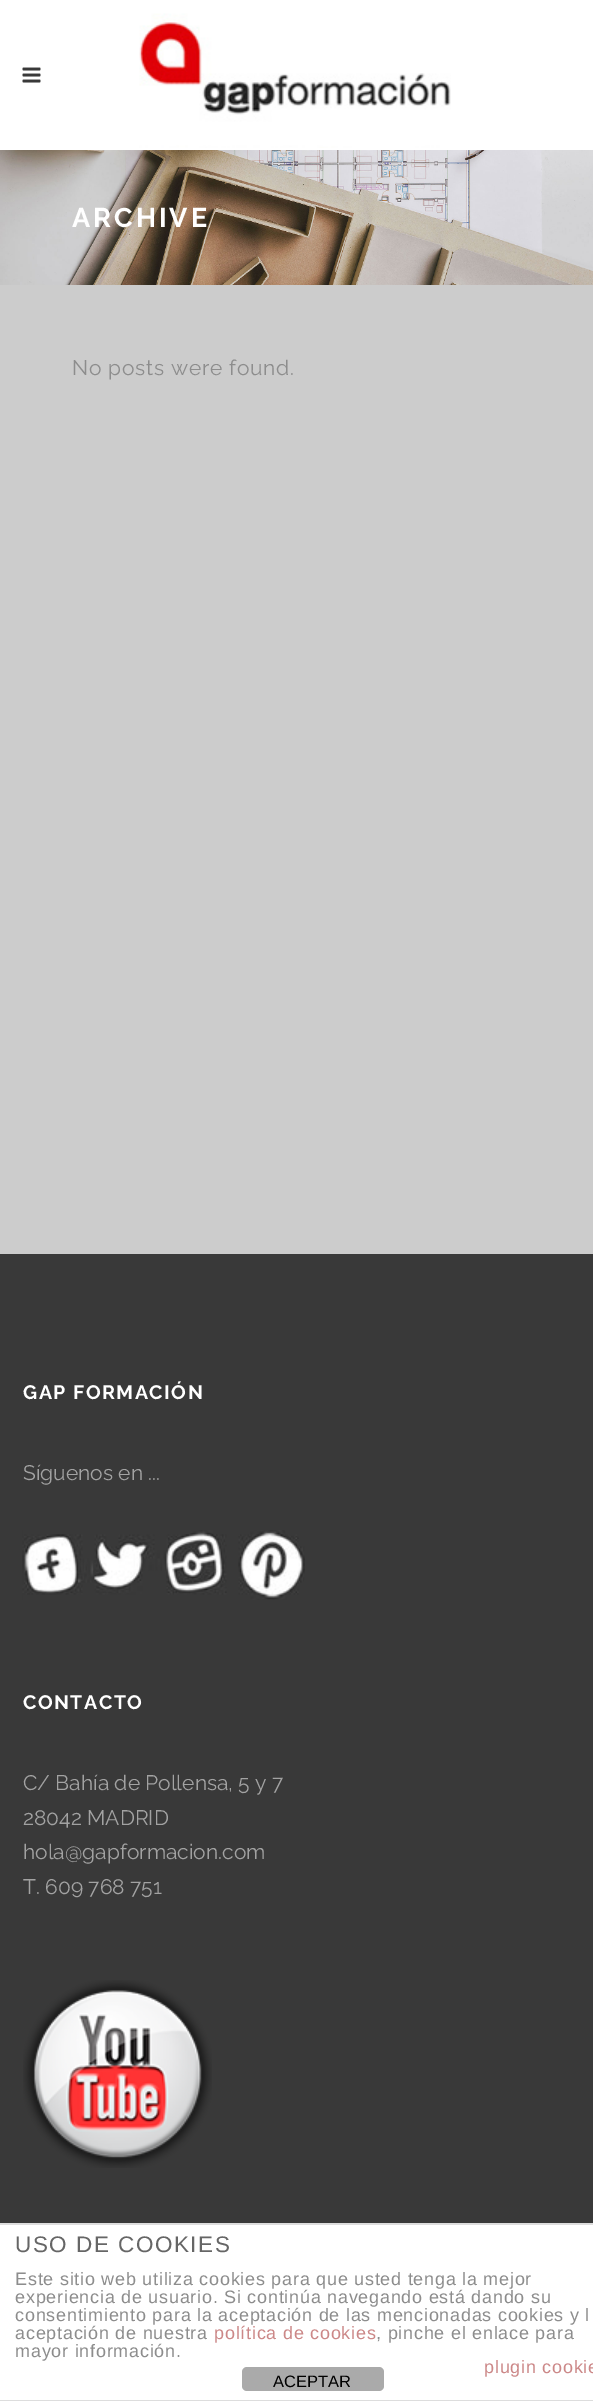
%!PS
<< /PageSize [593 2401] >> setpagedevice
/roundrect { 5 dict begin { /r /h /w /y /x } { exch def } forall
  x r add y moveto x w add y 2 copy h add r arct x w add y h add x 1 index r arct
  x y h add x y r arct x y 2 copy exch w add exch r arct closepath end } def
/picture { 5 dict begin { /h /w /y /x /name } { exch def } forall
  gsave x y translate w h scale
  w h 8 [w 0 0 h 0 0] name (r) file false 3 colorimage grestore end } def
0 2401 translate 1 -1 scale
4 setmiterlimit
0.8 setgray
0 0 593 2401 rectfill
1 setgray
0 0 593 150 rectfill
(img1.rgb) 22 67 19 16 picture
(img2.rgb) 139 13 312 135 picture
(img3.rgb) 0 150 593 135 picture
/Raleway-Bold [27 0 0 -27 0 0] selectfont
72 227 moveto 3 0 (ARCHIVE) ashow
/Raleway-Regular [21 0 0 -21 0 0] selectfont
0.553 setgray
72 375 moveto 0.75 0 (No posts were found.) ashow
0.224 setgray
0 1254 593 969 rectfill
/Raleway-Bold [19.5 0 0 -19.5 0 0] selectfont
1 setgray
23 1399 moveto 1.5 0 (GAP FORMACIÓN) ashow
/Raleway-Regular [21 0 0 -21 0 0] selectfont
0.635 setgray
23 1480 moveto (Síguenos en ...) show
(img4.rgb) 22 1530 283 70 picture
/Raleway-Bold [19.5 0 0 -19.5 0 0] selectfont
1 setgray
23 1709 moveto 1.5 0 (CONTACTO) ashow
/Raleway-Regular [21 0 0 -21 0 0] selectfont
0.635 setgray
23 1790 moveto (C/ Bahía de Pollensa, 5 y 7) show
23 1825 moveto (28042 MADRID) show
23 1859 moveto (hola@gapformacion.com) show
23 1894 moveto (T. 609 768 751) show
(img5.rgb) 23 1980 189 188 picture
1 setgray
0 2225 593 175 rectfill
0.867 setgray
0 2223 593 2 rectfill
0 2400 593 1 rectfill
/LiberationSans-Regular [22.5 0 0 -22.5 0 0] selectfont
0.4 setgray
15 2252 moveto 1.5 0 (USO DE COOKIES) ashow
/LiberationSans-Regular [18 0 0 -18 0 0] selectfont
0.553 setgray
15 2285 moveto 0.75 0 (Este sitio web utiliza cookies para que usted tenga la mejor) ashow
15 2303 moveto 0.75 0 (experiencia de usuario. Si continúa navegando está dando su) ashow
15 2321 moveto 0.75 0 (consentimiento para la aceptación de las mencionadas cookies y l) ashow
15 2339 moveto 0.75 0 (aceptación de nuestra) ashow
0.8 0.533 0.533 setrgbcolor
214 2339 moveto 0.75 0 (política de cookies) ashow
0.553 setgray
376 2339 moveto 0.75 0 (, pinche el enlace para) ashow
15 2357 moveto 0.75 0 (mayor información.) ashow
0.8 0.533 0.533 setrgbcolor
484 2373 moveto 0.75 0 (plugin cookie) ashow
0.667 setgray
242 2367 142 24 5 roundrect fill
/LiberationSans-Regular [16.5 0 0 -16.5 0 0] selectfont
0 setgray
273 2387 moveto (ACEPTAR) show
showpage
